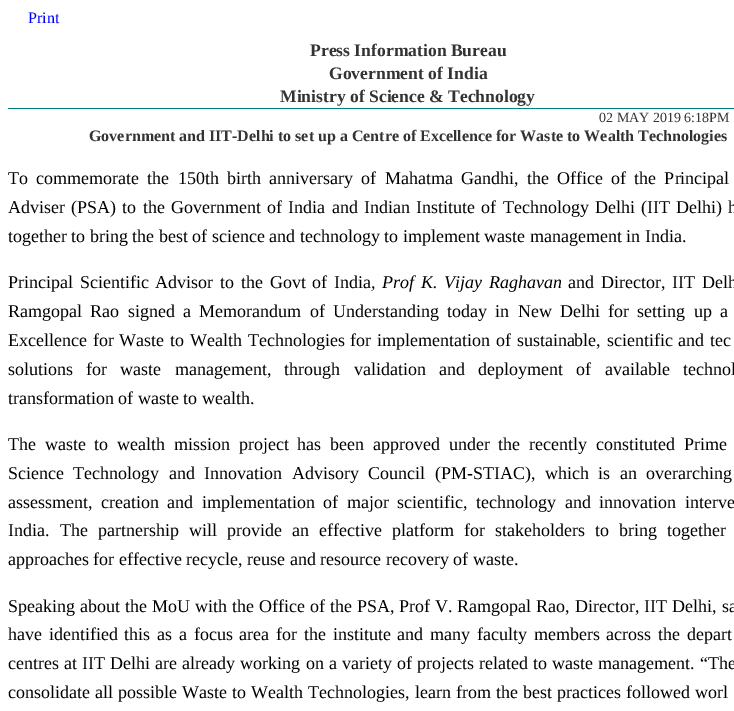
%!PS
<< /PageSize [734 711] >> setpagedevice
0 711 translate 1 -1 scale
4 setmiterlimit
1 setgray
0 0 734 711 rectfill
/LiberationSerif-Regular [16 0 0 -16 0 0] selectfont
0 0 1 setrgbcolor
28 23 moveto (Print) show
0 0.502 0.502 setrgbcolor
8 108 726 1 rectfill
/LiberationSerif-Bold [17.6 0 0 -17.6 0 0] selectfont
0.2 setgray
310 56 moveto (Press Information Bureau) show
329 79 moveto (Government of India) show
280 102 moveto (Ministry of Science & Technology) show
/LiberationSerif-Regular [14 0 0 -14 0 0] selectfont
599 122 moveto (02 MAY 2019 6:18PM) show
/LiberationSerif-Bold [16 0 0 -16 0 0] selectfont
89 141 moveto (Government and IIT-Delhi to set up a Centre of Excellence for Waste to Wealth Technologies) show
/LiberationSerif-Regular [18 0 0 -18 0 0] selectfont
0 setgray
8 184 moveto 3.75 0 32 (To commemorate the 150th birth anniversary of Mahatma Gandhi, the Office of the Principal) widthshow
8 213 moveto 1.75 0 32 (Adviser \(PSA\) to the Government of India and Indian Institute of Technology Delhi \(IIT Delhi\) h) widthshow
8 242 moveto (together to bring the best of science and technology to implement waste management in India.) show
8 288 moveto 2.25 0 32 (Principal Scientific Advisor to the Govt of India) widthshow
/LiberationSerif-Italic [18 0 0 -18 0 0] selectfont
371 288 moveto (,) show
382 288 moveto 2.25 0 32 (Prof K) widthshow
1 setgray
433 276 1 1 rectfill
0 setgray
433 288 moveto (.) show
444 288 moveto 2.25 0 32 (Vijay Raghavan) widthshow
/LiberationSerif-Regular [18 0 0 -18 0 0] selectfont
568 288 moveto 2.25 0 32 (and Director, IIT Delh) widthshow
8 317 moveto 3.75 0 32 (Ramgopal Rao) widthshow
128 317 moveto 3.75 0 32 (signed a Memorandum of Understanding today in New Delhi for setting up a) widthshow
8 346 moveto 1.25 0 32 (Excellence for Waste to Wealth Technologies for implementation of sustainable, scientific and tec) widthshow
8 375 moveto 8.75 0 32 (solutions for waste management, through validation and deployment of available technol) widthshow
8 404 moveto (transformation of waste to wealth.) show
8 450 moveto 4.25 0 32 (The waste to wealth mission project has been approved under the recently constituted Prime) widthshow
8 479 moveto 5 0 32 (Science Technology and Innovation Advisory Council \(PM-STIAC\), which is an overarching) widthshow
8 508 moveto 4 0 32 (assessment, creation and implementation of major scientific, technology and innovation interve) widthshow
8 536 moveto 5.6 0 32 (India. The partnership will provide an effective platform for stakeholders to bring together) widthshow
8 565 moveto (approaches for effective recycle, reuse and resource recovery of waste.) show
8 612 moveto 0.5 0 32 (Speaking about the MoU with the Office of the PSA,) widthshow
399 612 moveto 0.5 0 32 (Prof V. Ramgopal Rao, Director, IIT Delhi, sa) widthshow
8 640 moveto 2.25 0 32 (have identified this as a focus area for the institute and many faculty members across the depart) widthshow
8 669 moveto 0.6 0 32 (centres at IIT Delhi are already working on a variety of projects related to waste management. “The) widthshow
8 698 moveto 0.6 0 32 (consolidate all possible Waste to Wealth Technologies, learn from the best practices followed worl) widthshow
showpage
